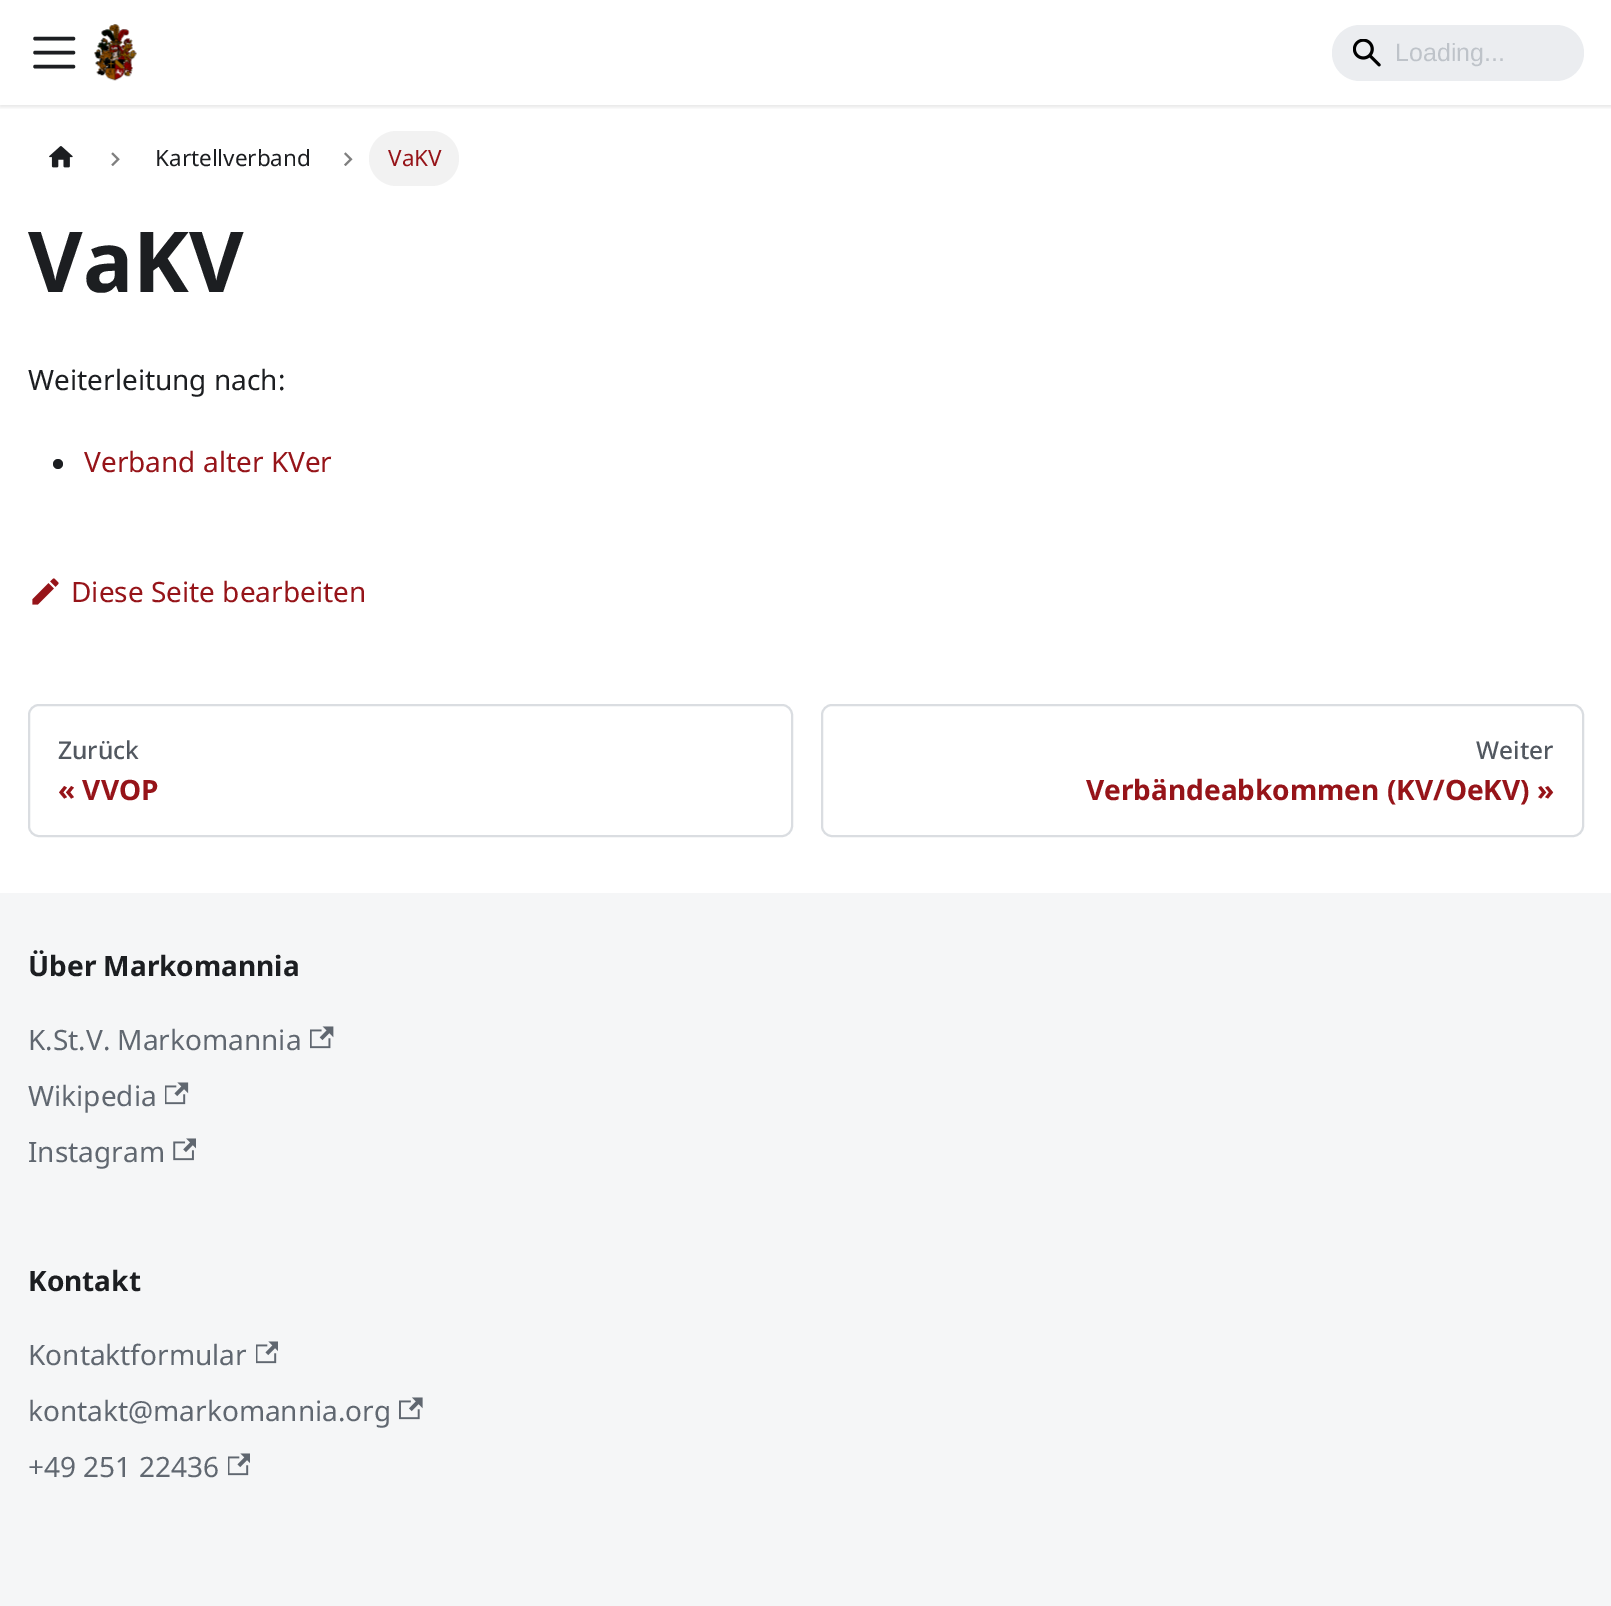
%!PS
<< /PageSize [1611 1606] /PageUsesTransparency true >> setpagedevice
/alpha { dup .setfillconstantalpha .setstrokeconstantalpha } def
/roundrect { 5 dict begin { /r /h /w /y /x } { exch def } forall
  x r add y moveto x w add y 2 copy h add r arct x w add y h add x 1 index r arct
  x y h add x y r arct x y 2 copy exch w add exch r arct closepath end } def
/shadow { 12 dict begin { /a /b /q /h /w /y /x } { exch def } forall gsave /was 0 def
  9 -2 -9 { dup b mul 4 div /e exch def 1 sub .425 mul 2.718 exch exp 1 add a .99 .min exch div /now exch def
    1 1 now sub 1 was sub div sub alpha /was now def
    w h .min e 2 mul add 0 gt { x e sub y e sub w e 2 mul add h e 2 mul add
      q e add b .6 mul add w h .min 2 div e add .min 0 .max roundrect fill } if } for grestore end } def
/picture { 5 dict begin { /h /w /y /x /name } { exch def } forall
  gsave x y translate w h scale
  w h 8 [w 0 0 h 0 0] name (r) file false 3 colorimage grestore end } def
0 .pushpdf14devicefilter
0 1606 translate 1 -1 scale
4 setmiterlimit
1 setgray
0 0 1611 1606 rectfill
gsave
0 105 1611 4 rectclip
0 setgray
0 2 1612 105 0 2 0.1 shadow
grestore
0.11 0.118 0.129 setrgbcolor
3.5 setlinewidth
1 setlinecap
newpath 35 38.5 moveto 73.5 38.5 lineto 35 52.5 moveto 73.5 52.5 lineto 35 66.5 moveto 73.5 66.5 lineto stroke
(img1.rgb) 94 24 43 57 picture
0.922 0.929 0.941 setrgbcolor
1332 25 252 56 28 roundrect fill
(img2.rgb) 1353 39 28 28 picture
/LiberationSans-Regular [25 0 0 -25 0 0] selectfont
0.745 0.765 0.788 setrgbcolor
1395 61 moveto (Loading...) show
(img3.rgb) 49 146 24 22 picture
(img4.rgb) 111 152 9 14 picture
/NotoSans-Regular [22.5 0 0 -22.5 0 0] selectfont
0.11 0.118 0.129 setrgbcolor
155 166 moveto (Kartellverband) show
(img5.rgb) 344 152 9 14 picture
0.949 setgray
369 131 90 55 27.5 roundrect fill
0.588 0.078 0.098 setrgbcolor
388 166 moveto (VaKV) show
/NotoSans-Bold [84 0 0 -84 0 0] selectfont
0.11 0.118 0.129 setrgbcolor
28 292 moveto (VaKV) show
/NotoSans-Regular [28 0 0 -28 0 0] selectfont
28 390 moveto (Weiterleitung nach:) show
newpath 58 464 5 0 360 arc closepath fill
0.588 0.078 0.098 setrgbcolor
84 472 moveto (Verband alter KVer) show
(img6.rgb) 32 578 27 27 picture
71 602 moveto (Diese Seite bearbeiten) show
0.855 0.867 0.882 setrgbcolor
2 setlinewidth
0 setlinecap
29 705 763 131 10 roundrect stroke
/NotoSans-Medium [24.5 0 0 -24.5 0 0] selectfont
0.322 0.345 0.376 setrgbcolor
58 759 moveto (Zurück) show
/NotoSans-Bold [28 0 0 -28 0 0] selectfont
0.588 0.078 0.098 setrgbcolor
58 800 moveto (« VVOP) show
0.855 0.867 0.882 setrgbcolor
822 705 761 131 10 roundrect stroke
/NotoSans-Medium [24.5 0 0 -24.5 0 0] selectfont
0.322 0.345 0.376 setrgbcolor
1476 759 moveto (Weiter) show
/NotoSans-Bold [28 0 0 -28 0 0] selectfont
0.588 0.078 0.098 setrgbcolor
1086 800 moveto (Verbändeabkommen \(KV/OeKV\) ») show
0.961 0.965 0.969 setrgbcolor
0 893 1611 713 rectfill
0.11 0.118 0.129 setrgbcolor
28 976 moveto (Über Markomannia) show
/NotoSans-Regular [28 0 0 -28 0 0] selectfont
0.376 0.404 0.439 setrgbcolor
28 1050 moveto (K.St.V. Markomannia) show
(img7.rgb) 310 1026 24 23 picture
28 1106 moveto (Wikipedia) show
(img8.rgb) 165 1082 24 23 picture
28 1162 moveto (Instagram) show
(img9.rgb) 173 1138 23 23 picture
/NotoSans-Bold [28 0 0 -28 0 0] selectfont
0.11 0.118 0.129 setrgbcolor
28 1291 moveto (Kontakt) show
/NotoSans-Regular [28 0 0 -28 0 0] selectfont
0.376 0.404 0.439 setrgbcolor
28 1365 moveto (Kontaktformular) show
(img10.rgb) 256 1341 22 23 picture
28 1421 moveto (kontakt@markomannia.org) show
(img11.rgb) 399 1397 24 23 picture
28 1477 moveto (+49 251 22436) show
(img10.rgb) 228 1453 22 23 picture
.poppdf14devicefilter showpage
